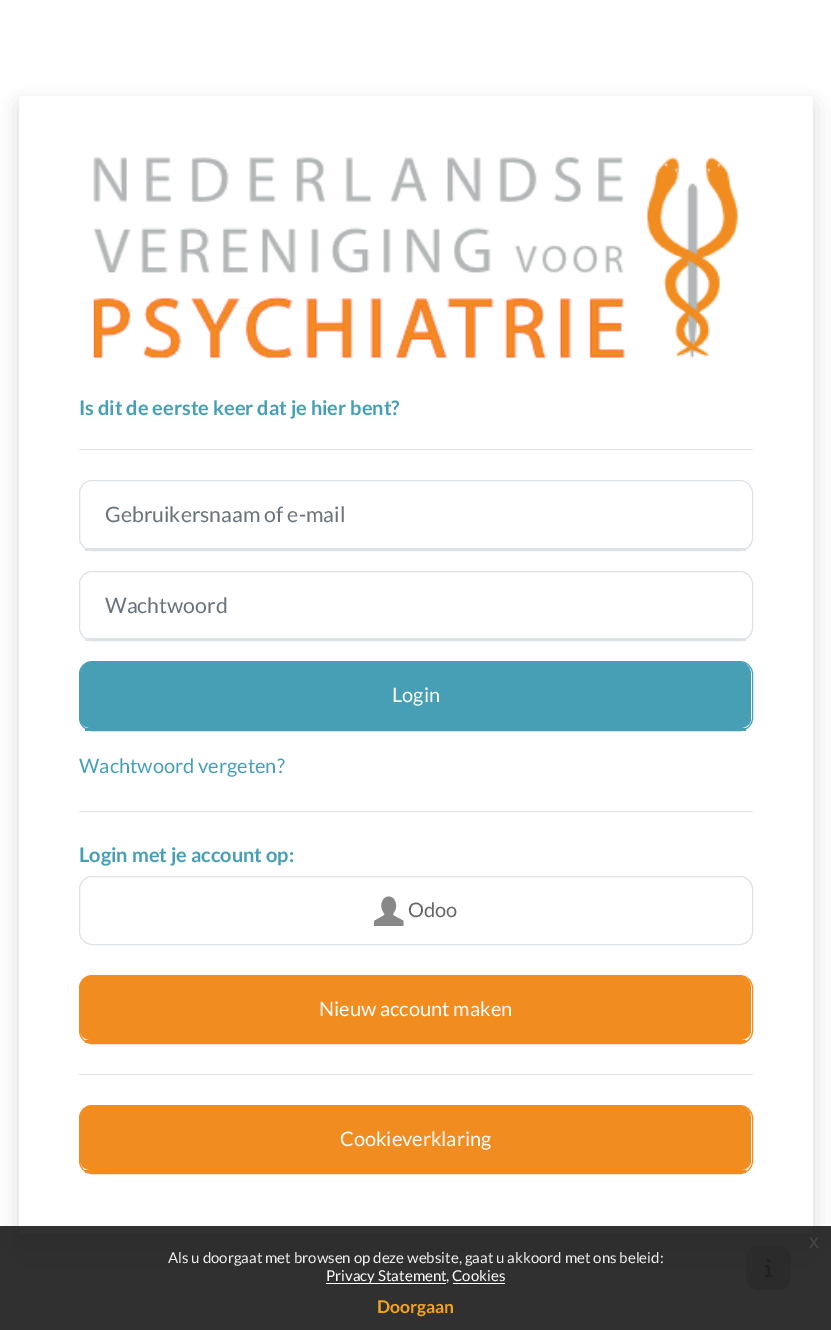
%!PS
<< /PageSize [831 1330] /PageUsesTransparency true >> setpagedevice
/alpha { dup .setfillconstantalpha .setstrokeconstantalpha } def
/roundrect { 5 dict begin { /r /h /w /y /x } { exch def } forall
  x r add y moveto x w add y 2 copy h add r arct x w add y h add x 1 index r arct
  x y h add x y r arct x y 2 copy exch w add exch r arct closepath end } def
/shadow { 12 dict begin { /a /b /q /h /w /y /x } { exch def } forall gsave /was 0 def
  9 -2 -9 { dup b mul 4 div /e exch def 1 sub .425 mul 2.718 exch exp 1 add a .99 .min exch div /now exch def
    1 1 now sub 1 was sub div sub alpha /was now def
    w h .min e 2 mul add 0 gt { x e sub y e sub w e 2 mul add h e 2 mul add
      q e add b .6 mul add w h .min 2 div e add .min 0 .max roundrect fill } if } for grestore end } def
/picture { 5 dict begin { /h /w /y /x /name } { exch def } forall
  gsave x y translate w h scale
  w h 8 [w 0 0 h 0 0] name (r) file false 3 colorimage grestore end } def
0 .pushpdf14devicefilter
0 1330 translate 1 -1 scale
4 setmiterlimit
1 setgray
0 0 831 1330 rectfill
0 setgray
19 106 794 1138 0 10 0.15 shadow
1 setgray
19 96 794 1138 rectfill
(img1.rgb) 93 157 645 201 picture
/Lato-Bold [20 0 0 -20 0 0] selectfont
0.275 0.624 0.706 setrgbcolor
79 415 moveto (Is dit de eerste keer dat je hier bent?) show
0.871 0.886 0.902 setrgbcolor
79 449 674 1 rectfill
79.5 480.5 673 70 12.5 roundrect stroke
85 548 661 3 rectfill
/Lato-Regular [21.25 0 0 -21.25 0 0] selectfont
0.416 0.451 0.482 setrgbcolor
105 522 moveto (Gebruikersnaam of e-mail) show
0.871 0.886 0.902 setrgbcolor
79.5 571.5 673 69 12.5 roundrect stroke
85 638 661 3 rectfill
0.416 0.451 0.482 setrgbcolor
105 613 moveto (Wachtwoord) show
0.275 0.624 0.706 setrgbcolor
newpath 91 662 moveto 740 662 lineto 746 662 751 668 751 674 curveto 751 719 lineto 751 724 746 728 740 728 curveto 91 728 lineto 85 728 80 724 80 719 curveto 80 674 lineto 80 668 85 662 91 662 curveto closepath fill
79.5 661.5 673 69 12.5 roundrect stroke
85 728 661 3 rectfill
/Lato-Regular [20 0 0 -20 0 0] selectfont
1 setgray
392 702 moveto (Login) show
0.275 0.624 0.706 setrgbcolor
79 773 moveto (Wachtwoord vergeten?) show
0.871 0.886 0.902 setrgbcolor
79 811 674 1 rectfill
/Lato-Bold [20 0 0 -20 0 0] selectfont
0.275 0.624 0.706 setrgbcolor
79 862 moveto (Login met je account op:) show
0.871 0.886 0.902 setrgbcolor
79.5 876.5 673 68 12.5 roundrect stroke
(img2.rgb) 374 896 30 30 picture
/Lato-Regular [20 0 0 -20 0 0] selectfont
0.4 setgray
408 917 moveto (Odoo) show
0.945 0.549 0.129 setrgbcolor
newpath 91 976 moveto 740 976 lineto 746 976 751 981 751 988 curveto 751 1031 lineto 751 1036 746 1040 740 1040 curveto 91 1040 lineto 85 1040 80 1036 80 1031 curveto 80 988 lineto 80 981 85 976 91 976 curveto closepath fill
79.5 975.5 673 68 12.5 roundrect stroke
85 1040 661 3 rectfill
1 setgray
319 1016 moveto (Nieuw account maken) show
0.871 0.886 0.902 setrgbcolor
79 1074 674 1 rectfill
0.945 0.549 0.129 setrgbcolor
newpath 91 1106 moveto 740 1106 lineto 746 1106 751 1111 751 1118 curveto 751 1161 lineto 751 1166 746 1170 740 1170 curveto 91 1170 lineto 85 1170 80 1166 80 1161 curveto 80 1118 lineto 80 1111 85 1106 91 1106 curveto closepath fill
79.5 1105.5 673 68 12.5 roundrect stroke
85 1170 661 3 rectfill
1 setgray
340 1146 moveto (Cookieverklaring) show
0.808 0.831 0.855 setrgbcolor
746 1245 45 45 13 roundrect fill
(img3.rgb) 765 1258 8 20 picture
0.9 alpha
0.098 setgray
0 1226 831 104 rectfill
/LiberationSans-Regular [20 0 0 -20 0 0] selectfont
1 alpha
0.275 setgray
809 1248 moveto (x) show
/Lato-Regular [15 0 0 -15 0 0] selectfont
0.937 setgray
168 1263 moveto (Als u doorgaat met browsen op deze website, gaat u akkoord met ons beleid:) show
1 setgray
326 1283 120 1 rectfill
326 1281 moveto (Privacy Statement) show
0.937 setgray
446 1281 moveto (,) show
1 setgray
453 1283 52 1 rectfill
452 1281 moveto (Cookies) show
/Lato-Bold [17.5 0 0 -17.5 0 0] selectfont
0.965 0.635 0.114 setrgbcolor
377 1313 moveto (Doorgaan) show
.poppdf14devicefilter showpage
